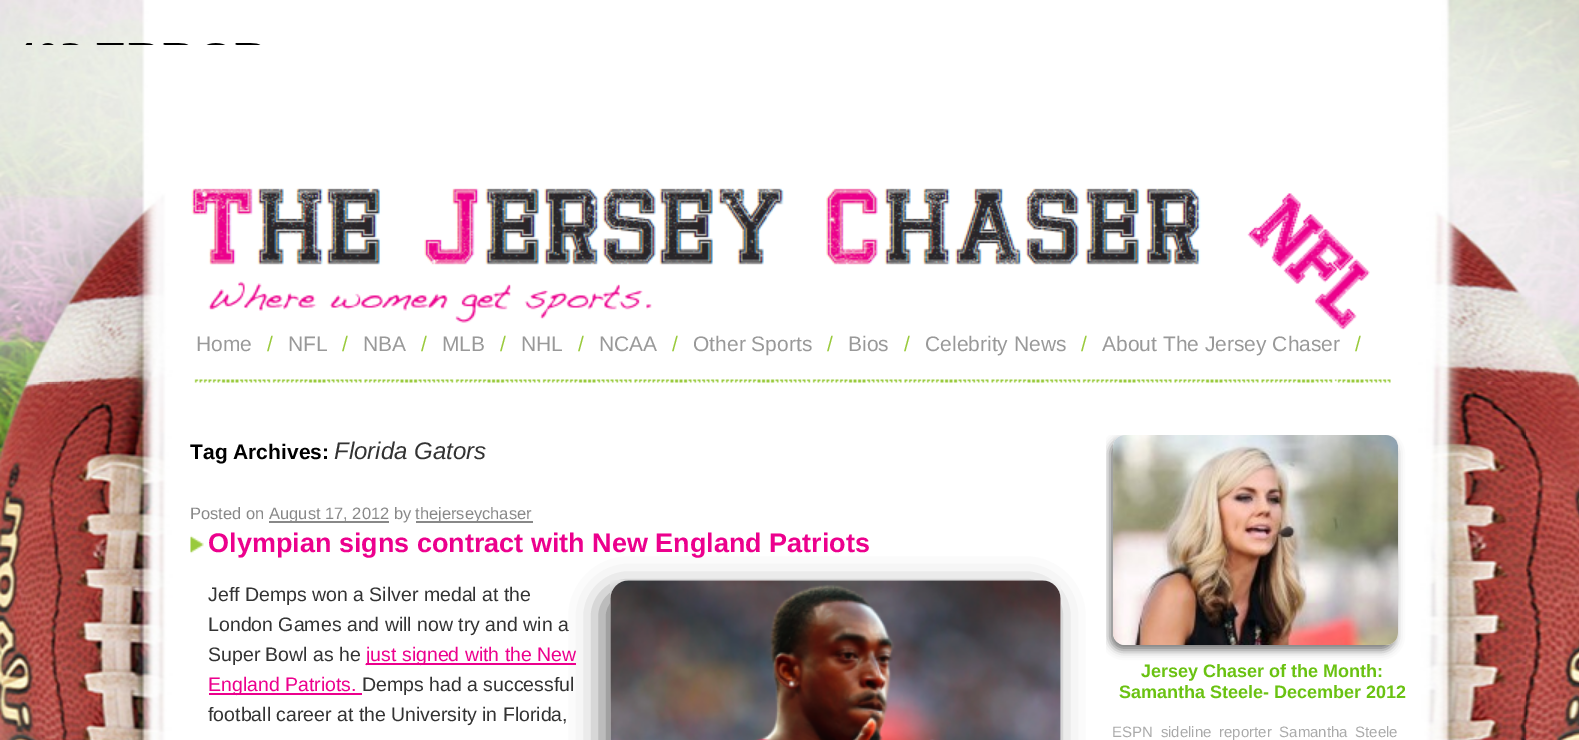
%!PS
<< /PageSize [1579 740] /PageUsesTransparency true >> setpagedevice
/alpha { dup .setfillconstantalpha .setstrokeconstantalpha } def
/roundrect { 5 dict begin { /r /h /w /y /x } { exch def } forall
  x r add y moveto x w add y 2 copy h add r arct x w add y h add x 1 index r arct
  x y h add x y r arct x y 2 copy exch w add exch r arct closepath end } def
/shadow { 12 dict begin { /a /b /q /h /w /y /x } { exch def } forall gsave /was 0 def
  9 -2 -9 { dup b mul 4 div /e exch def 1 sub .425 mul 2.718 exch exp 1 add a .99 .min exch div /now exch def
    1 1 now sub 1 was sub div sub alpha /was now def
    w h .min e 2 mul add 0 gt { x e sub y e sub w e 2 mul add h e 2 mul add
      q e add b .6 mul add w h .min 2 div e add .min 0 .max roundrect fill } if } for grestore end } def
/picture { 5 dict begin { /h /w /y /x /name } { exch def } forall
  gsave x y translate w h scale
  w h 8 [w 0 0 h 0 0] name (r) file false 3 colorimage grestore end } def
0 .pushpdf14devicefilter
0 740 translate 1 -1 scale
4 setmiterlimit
1 setgray
0 0 1579 740 rectfill
(img1.rgb) 0 0 1579 740 picture
(img2.rgb) 25 43 236 2 picture
(img3.rgb) 191 188 1200 195 picture
(img4.rgb) 1247 193 123 137 picture
/LiberationSans-Regular [21 0 0 -21 0 0] selectfont
0.6 setgray
196 351 moveto (Home) show
0.6 0.792 0.235 setrgbcolor
267 351 moveto (/) show
0.6 setgray
288 351 moveto (NFL) show
0.6 0.792 0.235 setrgbcolor
342 351 moveto (/) show
0.6 setgray
363 351 moveto (NBA) show
0.6 0.792 0.235 setrgbcolor
421 351 moveto (/) show
0.6 setgray
442 351 moveto (MLB) show
0.6 0.792 0.235 setrgbcolor
500 351 moveto (/) show
0.6 setgray
521 351 moveto (NHL) show
0.6 0.792 0.235 setrgbcolor
578 351 moveto (/) show
0.6 setgray
599 351 moveto (NCAA) show
0.6 0.792 0.235 setrgbcolor
672 351 moveto (/) show
0.6 setgray
693 351 moveto (Other Sports) show
0.6 0.792 0.235 setrgbcolor
827 351 moveto (/) show
0.6 setgray
848 351 moveto (Bios) show
0.6 0.792 0.235 setrgbcolor
904 351 moveto (/) show
0.6 setgray
925 351 moveto (Celebrity News) show
0.6 0.792 0.235 setrgbcolor
1081 351 moveto (/) show
0.6 setgray
1102 351 moveto (About The Jersey Chaser) show
0.6 0.792 0.235 setrgbcolor
1355 351 moveto (/) show
/LiberationSans-Bold [21 0 0 -21 0 0] selectfont
0 setgray
190 459 moveto (Tag Archives:) show
/LiberationSans-Italic [24 0 0 -24 0 0] selectfont
0.2 setgray
334 459 moveto (Florida Gators) show
/LiberationSans-Regular [16.5 0 0 -16.5 0 0] selectfont
0.533 setgray
190 519 moveto (Posted on) show
269 521 120 2 rectfill
269 519 moveto (August 17, 2012 by) show
416 521 117 2 rectfill
415 519 moveto (thejerseychaser) show
(img5.rgb) 190 535 14 19 picture
0.467 setgray
602 590 450 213 18 15 1 shadow
/LiberationSans-Bold [27 0 0 -27 0 0] selectfont
0.925 0 0.553 setrgbcolor
208 552 moveto (Olympian signs contract with New England Patriots) show
/LiberationSans-Regular [19.5 0 0 -19.5 0 0] selectfont
0.2 setgray
208 601 moveto (Jeff Demps won a Silver medal at the) show
(img6.rgb) 610 580 451 160 picture
208 631 moveto (London Games and will now try and win a) show
208 661 moveto (Super Bowl as he) show
0.925 0 0.553 setrgbcolor
366 663 210 2 rectfill
366 661 moveto (just signed with the New) show
209 693 153 2 rectfill
208 691 moveto (England Patriots.) show
0.2 setgray
362 691 moveto (Demps had a successful) show
208 721 moveto (football career at the University in Florida,) show
gsave
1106 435 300 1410 rectclip
0.467 setgray
1110 440 285 210 12 4.5 1 shadow
grestore
(img7.rgb) 1113 435 285 210 picture
/LiberationSans-Bold [18 0 0 -18 0 0] selectfont
0.416 0.761 0.071 setrgbcolor
1141 677 moveto (Jersey Chaser of the Month:) show
1119 698 moveto (Samantha Steele- December 2012) show
/LiberationSans-Regular [15 0 0 -15 0 0] selectfont
0.667 setgray
1112 737 moveto 3.5 0 32 (ESPN sideline reporter Samantha Steele) widthshow
.poppdf14devicefilter showpage
